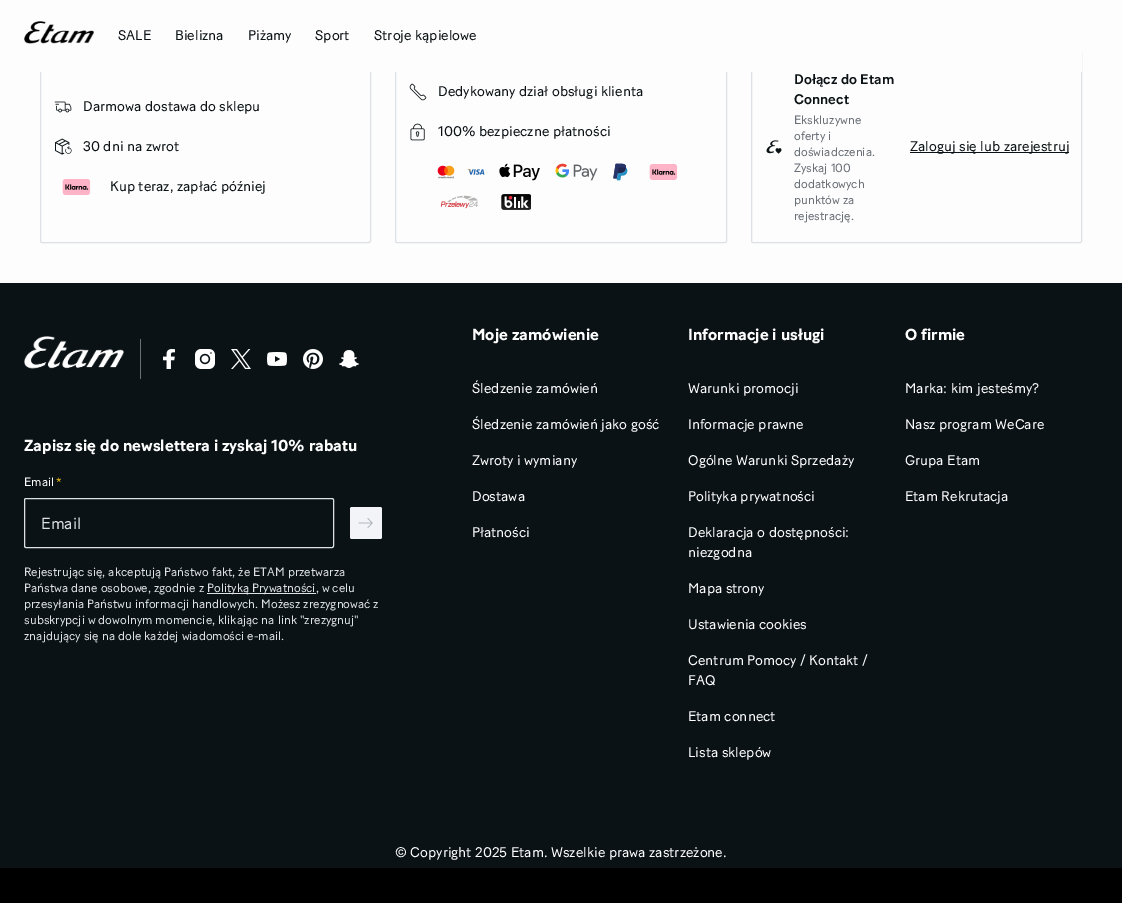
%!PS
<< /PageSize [1122 903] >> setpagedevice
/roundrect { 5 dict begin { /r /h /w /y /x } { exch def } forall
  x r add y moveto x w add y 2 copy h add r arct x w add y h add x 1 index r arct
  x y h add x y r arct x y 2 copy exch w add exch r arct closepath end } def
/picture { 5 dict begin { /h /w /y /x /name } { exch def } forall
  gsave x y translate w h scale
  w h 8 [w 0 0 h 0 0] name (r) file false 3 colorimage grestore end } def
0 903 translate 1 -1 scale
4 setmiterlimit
0.992 setgray
0 0 1122 903 rectfill
(img1.rgb) 24 21 70 23 picture
/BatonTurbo-Regular [14 0 0 -14 0 0] selectfont
0.043 0.071 0.082 setrgbcolor
118 40 moveto (SALE) show
175 40 moveto (Bielizna) show
248 40 moveto (Piżamy) show
315 40 moveto (Sport) show
374 40 moveto (Stroje kąpielowe) show
0.867 0.882 0.902 setrgbcolor
40.5 51.5 330 191 1.5 roundrect stroke
395.5 51.5 331 191 1.5 roundrect stroke
751.5 51.5 330 191 1.5 roundrect stroke
0.992 setgray
40 51 1042 21 rectfill
(img2.rgb) 54 101 18 12 picture
0.043 0.071 0.082 setrgbcolor
83 111 moveto (Darmowa dostawa do sklepu) show
(img3.rgb) 55 138 17 17 picture
83 151 moveto (30 dni na zwrot) show
(img4.rgb) 62 179 29 16 picture
110 191 moveto (Kup teraz, zapłać później) show
(img5.rgb) 409 83 18 18 picture
438 96 moveto (Dedykowany dział obsługi klienta) show
(img6.rgb) 410 123 15 18 picture
438 136 moveto (100% bezpieczne płatności) show
(img7.rgb) 437 165 18 14 picture
(img8.rgb) 467 169 18 6 picture
(img9.rgb) 499 163 41 18 picture
(img10.rgb) 555 163 43 18 picture
(img11.rgb) 613 163 15 18 picture
(img4.rgb) 649 164 29 16 picture
(img12.rgb) 440 195 38 14 picture
(img13.rgb) 501 194 30 16 picture
(img14.rgb) 766 140 16 14 picture
/BatonTurbo-Medium [14 0 0 -14 0 0] selectfont
794 84 moveto (Dołącz do Etam) show
794 104 moveto (Connect) show
/BatonTurbo-Regular [12 0 0 -12 0 0] selectfont
0.412 0.439 0.467 setrgbcolor
794 124 moveto (Ekskluzywne) show
794 140 moveto (oferty i) show
794 156 moveto (doświadczenia.) show
794 172 moveto (Zyskaj 100) show
794 188 moveto (dodatkowych) show
794 204 moveto (punktów za) show
794 220 moveto (rejestrację.) show
0.043 0.071 0.082 setrgbcolor
910 152 159 1 rectfill
/BatonTurbo-Regular [14 0 0 -14 0 0] selectfont
910 151 moveto (Zaloguj się lub zarejestruj) show
0 283 1122 585 rectfill
(img15.rgb) 24 336 100 33 picture
0.412 0.439 0.467 setrgbcolor
140 339 1 40 rectfill
(img16.rgb) 163 349 12 20 picture
(img17.rgb) 195 349 20 20 picture
(img18.rgb) 231 349 20 20 picture
(img19.rgb) 267 352 20 14 picture
(img20.rgb) 303 349 20 20 picture
(img21.rgb) 339 350 20 18 picture
/BatonTurbo-Bold [16 0 0 -16 0 0] selectfont
0.992 setgray
472 340 moveto (Moje zamówienie) show
/BatonTurbo-Regular [14 0 0 -14 0 0] selectfont
472 393 moveto (Śledzenie zamówień) show
472 429 moveto (Śledzenie zamówień jako gość) show
472 465 moveto (Zwroty i wymiany) show
472 501 moveto (Dostawa) show
472 537 moveto (Płatności) show
/BatonTurbo-Bold [16 0 0 -16 0 0] selectfont
688 340 moveto (Informacje i usługi) show
/BatonTurbo-Regular [14 0 0 -14 0 0] selectfont
688 393 moveto (Warunki promocji) show
688 429 moveto (Informacje prawne) show
688 465 moveto (Ogólne Warunki Sprzedaży) show
688 501 moveto (Polityka prywatności) show
688 537 moveto (Deklaracja o dostępności:) show
688 557 moveto (niezgodna) show
688 593 moveto (Mapa strony) show
688 629 moveto (Ustawienia cookies) show
688 665 moveto (Centrum Pomocy / Kontakt /) show
688 685 moveto (FAQ) show
688 721 moveto (Etam connect) show
688 757 moveto (Lista sklepów) show
/BatonTurbo-Bold [16 0 0 -16 0 0] selectfont
905 340 moveto (O firmie) show
/BatonTurbo-Regular [14 0 0 -14 0 0] selectfont
905 393 moveto (Marka: kim jesteśmy?) show
905 429 moveto (Nasz program WeCare) show
905 465 moveto (Grupa Etam) show
905 501 moveto (Etam Rekrutacja) show
/BatonTurbo-Bold [16 0 0 -16 0 0] selectfont
24 451 moveto (Zapisz się do newslettera i zyskaj 10% rabatu) show
/BatonTurbo-Regular [12 0 0 -12 0 0] selectfont
24 486 moveto (Email) show
0.945 0.761 0.106 setrgbcolor
56 486 moveto (*) show
0.867 0.882 0.902 setrgbcolor
24.5 498.5 309 49 1.5 roundrect stroke
/BatonTurbo-Regular [16 0 0 -16 0 0] selectfont
41 529 moveto (Email) show
0.949 0.957 0.973 setrgbcolor
350 507 32 32 2 roundrect fill
(img22.rgb) 358 518 15 10 picture
/BatonTurbo-Regular [12 0 0 -12 0 0] selectfont
0.867 0.882 0.902 setrgbcolor
24 576 moveto (Rejestrując się, akceptują Państwo fakt, że ETAM przetwarza) show
24 592 moveto (Państwa dane osobowe, zgodnie z) show
207 593 109 1 rectfill
207 592 moveto (Polityką Prywatności, w celu) show
24 608 moveto (przesyłania Państwu informacji handlowych. Możesz zrezygnować z) show
24 624 moveto (subskrypcji w dowolnym momencie, klikając na link "zrezygnuj") show
24 640 moveto (znajdujący się na dole każdej wiadomości e-mail.) show
/BatonTurbo-Regular [14 0 0 -14 0 0] selectfont
0.992 setgray
395 857 moveto (© Copyright 2025 Etam. Wszelkie prawa zastrzeżone.) show
0 setgray
0 868 1122 35 rectfill
showpage
